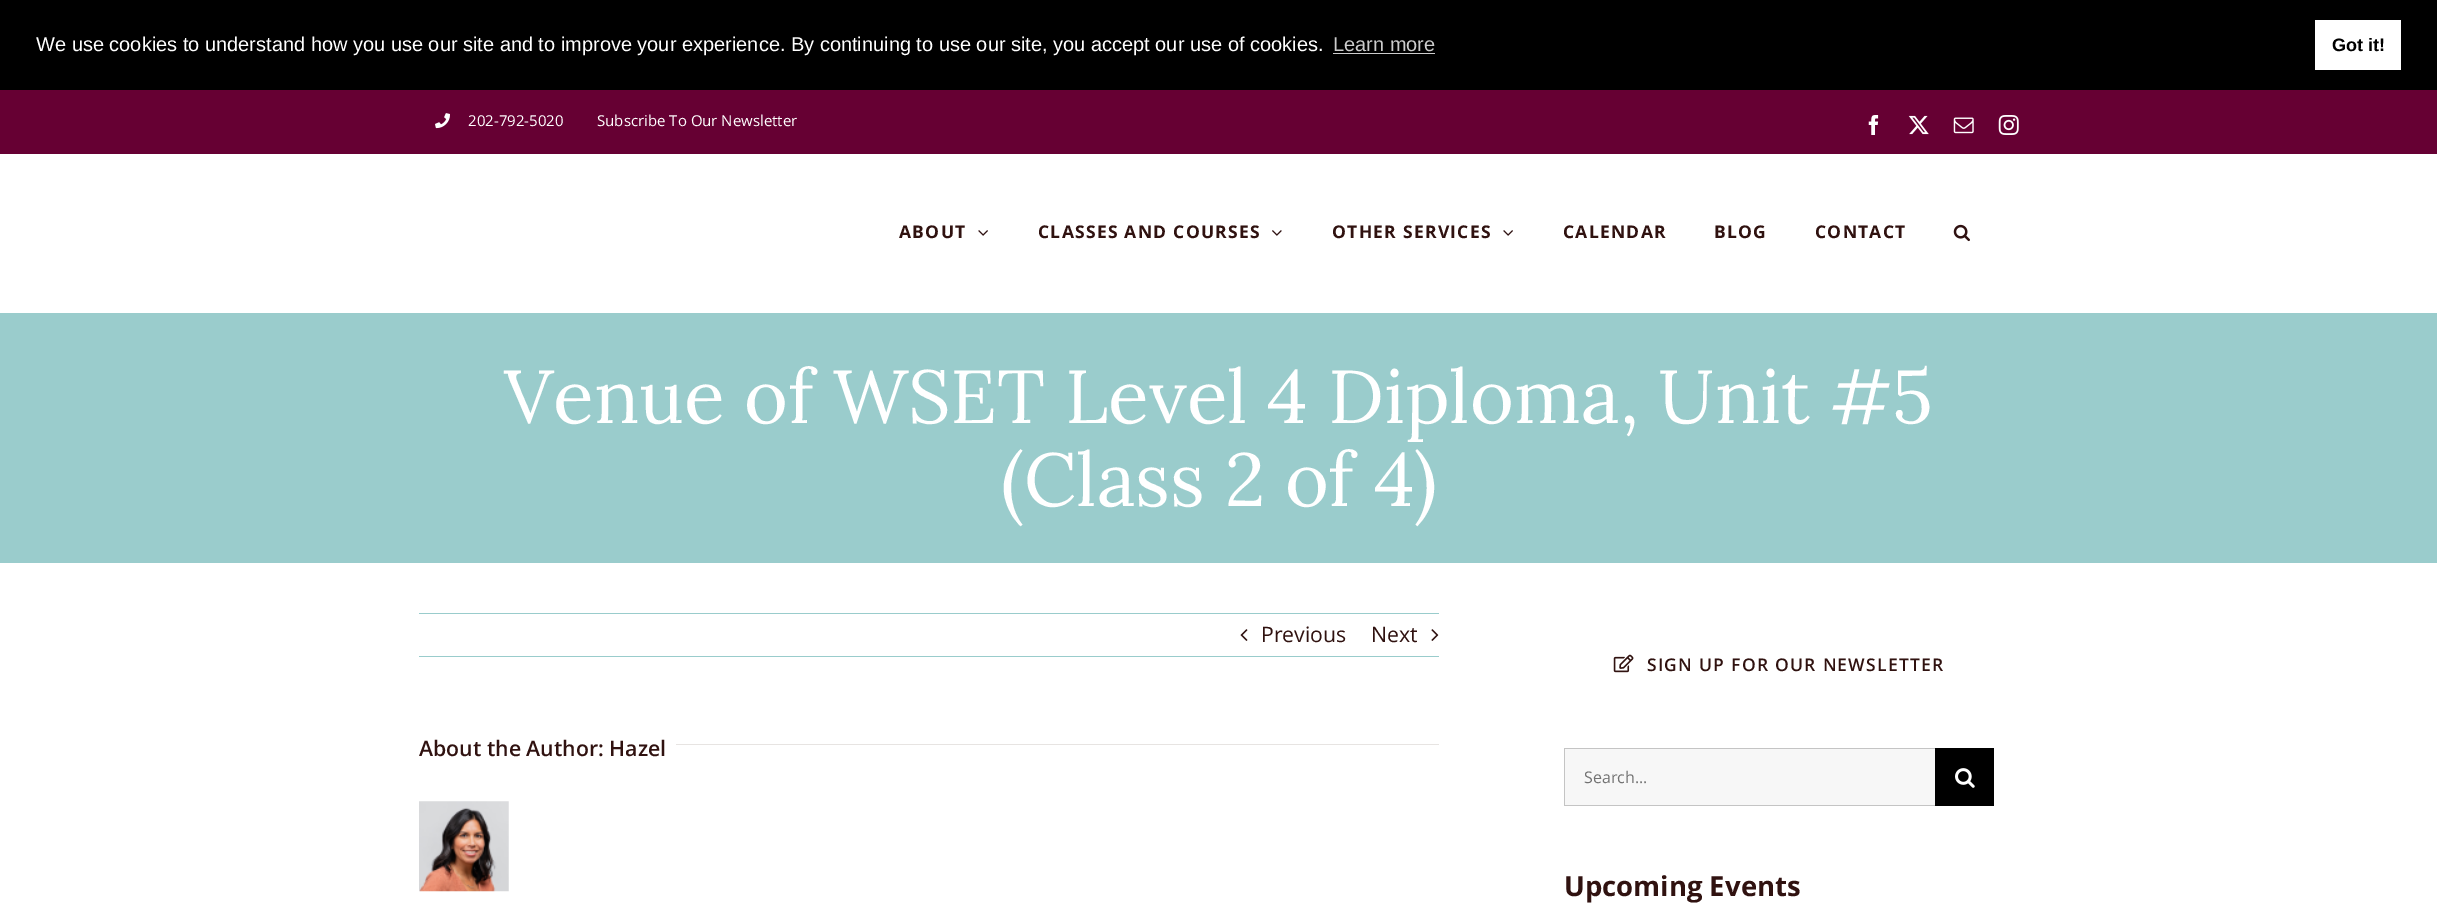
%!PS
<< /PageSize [2437 906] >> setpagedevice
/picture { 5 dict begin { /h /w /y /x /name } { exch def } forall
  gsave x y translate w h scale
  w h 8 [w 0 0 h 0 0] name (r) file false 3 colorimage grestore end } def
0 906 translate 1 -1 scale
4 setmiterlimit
1 setgray
0 0 2437 906 rectfill
0 setgray
0 0 2437 90 rectfill
/LiberationSans-Regular [20 0 0 -20 0 0] selectfont
1 setgray
36 51 moveto (We use cookies to understand how you use our site and to improve your experience. By continuing to use our site, you accept our use of cookies.) show
0.8 setgray
1333 51 moveto (Learn more) show
1333 53 102 1 rectfill
1 setgray
2315 20 86 50 rectfill
/LiberationSans-Bold [18 0 0 -18 0 0] selectfont
0 setgray
2332 51 moveto (Got it!) show
0.4 0 0.2 setrgbcolor
0 90 2437 64 rectfill
(img1.rgb) 435 113 15 16 picture
/OpenSans-Regular [15 0 0 -15 0 0] selectfont
1 setgray
468 126 moveto (202-792-5020) show
597 126 moveto (Subscribe To Our Newsletter) show
(img2.rgb) 1868 115 11 20 picture
(img3.rgb) 1908 115 21 20 picture
(img4.rgb) 1953 117 21 17 picture
(img5.rgb) 1998 115 21 20 picture
/OpenSans-Bold [17.5 0 0 -17.5 0 0] selectfont
0.188 0.071 0.063 setrgbcolor
899 238 moveto 1.25 0 (ABOUT) ashow
(img6.rgb) 978 230 10 6 picture
1038 238 moveto 1.25 0 (CLASSES AND COURSES) ashow
(img7.rgb) 1272 230 10 6 picture
1332 238 moveto 1.25 0 (OTHER SERVICES) ashow
(img6.rgb) 1503 230 10 6 picture
1563 238 moveto 1.25 0 (CALENDAR) ashow
1714 238 moveto 1.25 0 (BLOG) ashow
1815 238 moveto 1.25 0 (CONTACT) ashow
(img8.rgb) 1953 224 17 18 picture
0.604 0.8 0.8 setrgbcolor
0 313 2437 250 rectfill
/Lora-Regular [75 0 0 -75 0 0] selectfont
1 setgray
504 423 moveto (Venue of WSET Level 4 Diploma, Unit #5) show
1001 506 moveto (\(Class 2 of 4\)) show
0.6 0.8 0.8 setrgbcolor
419 613 1020 1 rectfill
419 656 1020 1 rectfill
(img9.rgb) 1240 629 8 12 picture
/OpenSans-Regular [21.25 0 0 -21.25 0 0] selectfont
0.188 0.071 0.063 setrgbcolor
1261 642 moveto (Previous) show
1371 642 moveto (Next) show
(img10.rgb) 1431 629 8 12 picture
/OpenSans-SemiBold [21.25 0 0 -21.25 0 0] selectfont
419 756 moveto (About the Author: Hazel) show
0.906 0.894 0.886 setrgbcolor
676 744 763 1 rectfill
(img11.rgb) 419 801 90 91 picture
(img12.rgb) 1613 654 21 19 picture
/OpenSans-SemiBold [17.5 0 0 -17.5 0 0] selectfont
0.188 0.071 0.063 setrgbcolor
1647 671 moveto 1.25 0 (SIGN UP FOR OUR NEWSLETTER) ashow
0.969 setgray
1565 749 370 56 rectfill
0.769 setgray
1564 748 371 1 rectfill
1564 805 371 1 rectfill
1564 748 1 58 rectfill
/OpenSans-Regular [16 0 0 -16 0 0] selectfont
0.447 setgray
1584 783 moveto (Search...) show
0 setgray
1935 748 59 58 rectfill
(img13.rgb) 1955 768 20 20 picture
/OpenSans-Bold [27.5 0 0 -27.5 0 0] selectfont
0.188 0.071 0.063 setrgbcolor
1564 896 moveto (Upcoming Events) show
showpage
